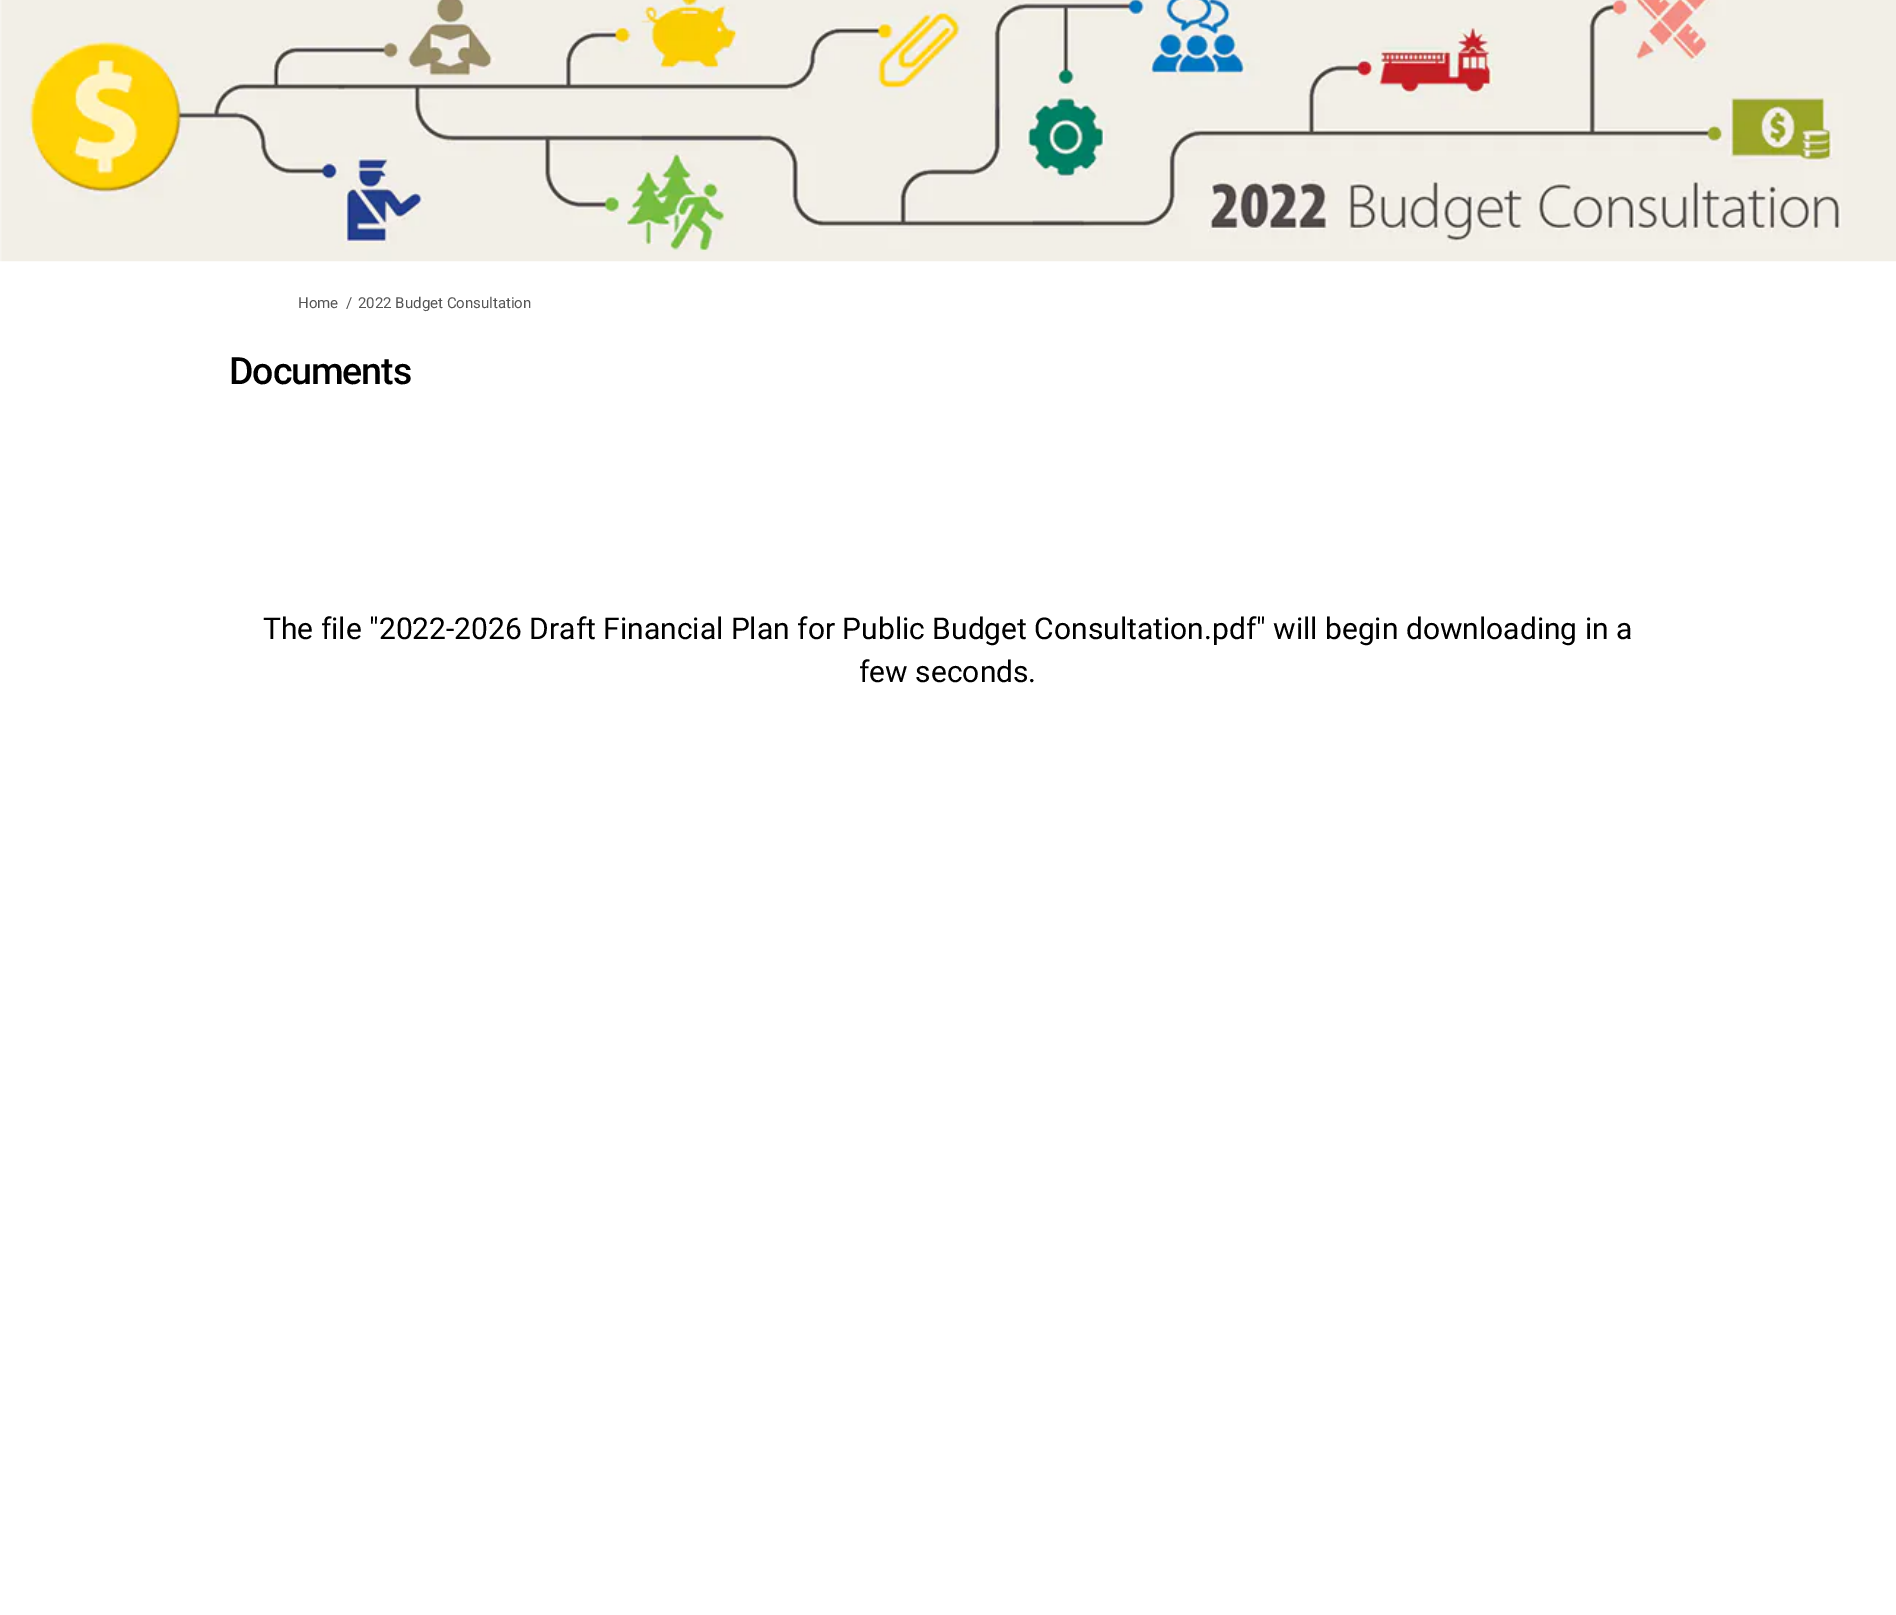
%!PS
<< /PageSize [1896 1615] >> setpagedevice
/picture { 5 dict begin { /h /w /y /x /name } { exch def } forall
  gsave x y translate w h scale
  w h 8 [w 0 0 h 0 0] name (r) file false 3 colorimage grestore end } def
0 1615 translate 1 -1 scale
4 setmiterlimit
1 setgray
0 0 1896 1615 rectfill
(img1.rgb) 0 0 1896 262 picture
/Roboto-Regular [15 0 0 -15 0 0] selectfont
0.333 setgray
298 308 moveto (Home) show
346 308 moveto (/) show
358 308 moveto (2022 Budget Consultation) show
/Roboto-Medium [37.5 0 0 -37.5 0 0] selectfont
0 setgray
229 384 moveto -1.1 0 (Documents) ashow
/Roboto-Regular [30 0 0 -30 0 0] selectfont
263 639 moveto (The file "2022-2026 Draft Financial Plan for Public Budget Consultation.pdf" will begin downloading in a) show
859 682 moveto (few seconds.) show
showpage
